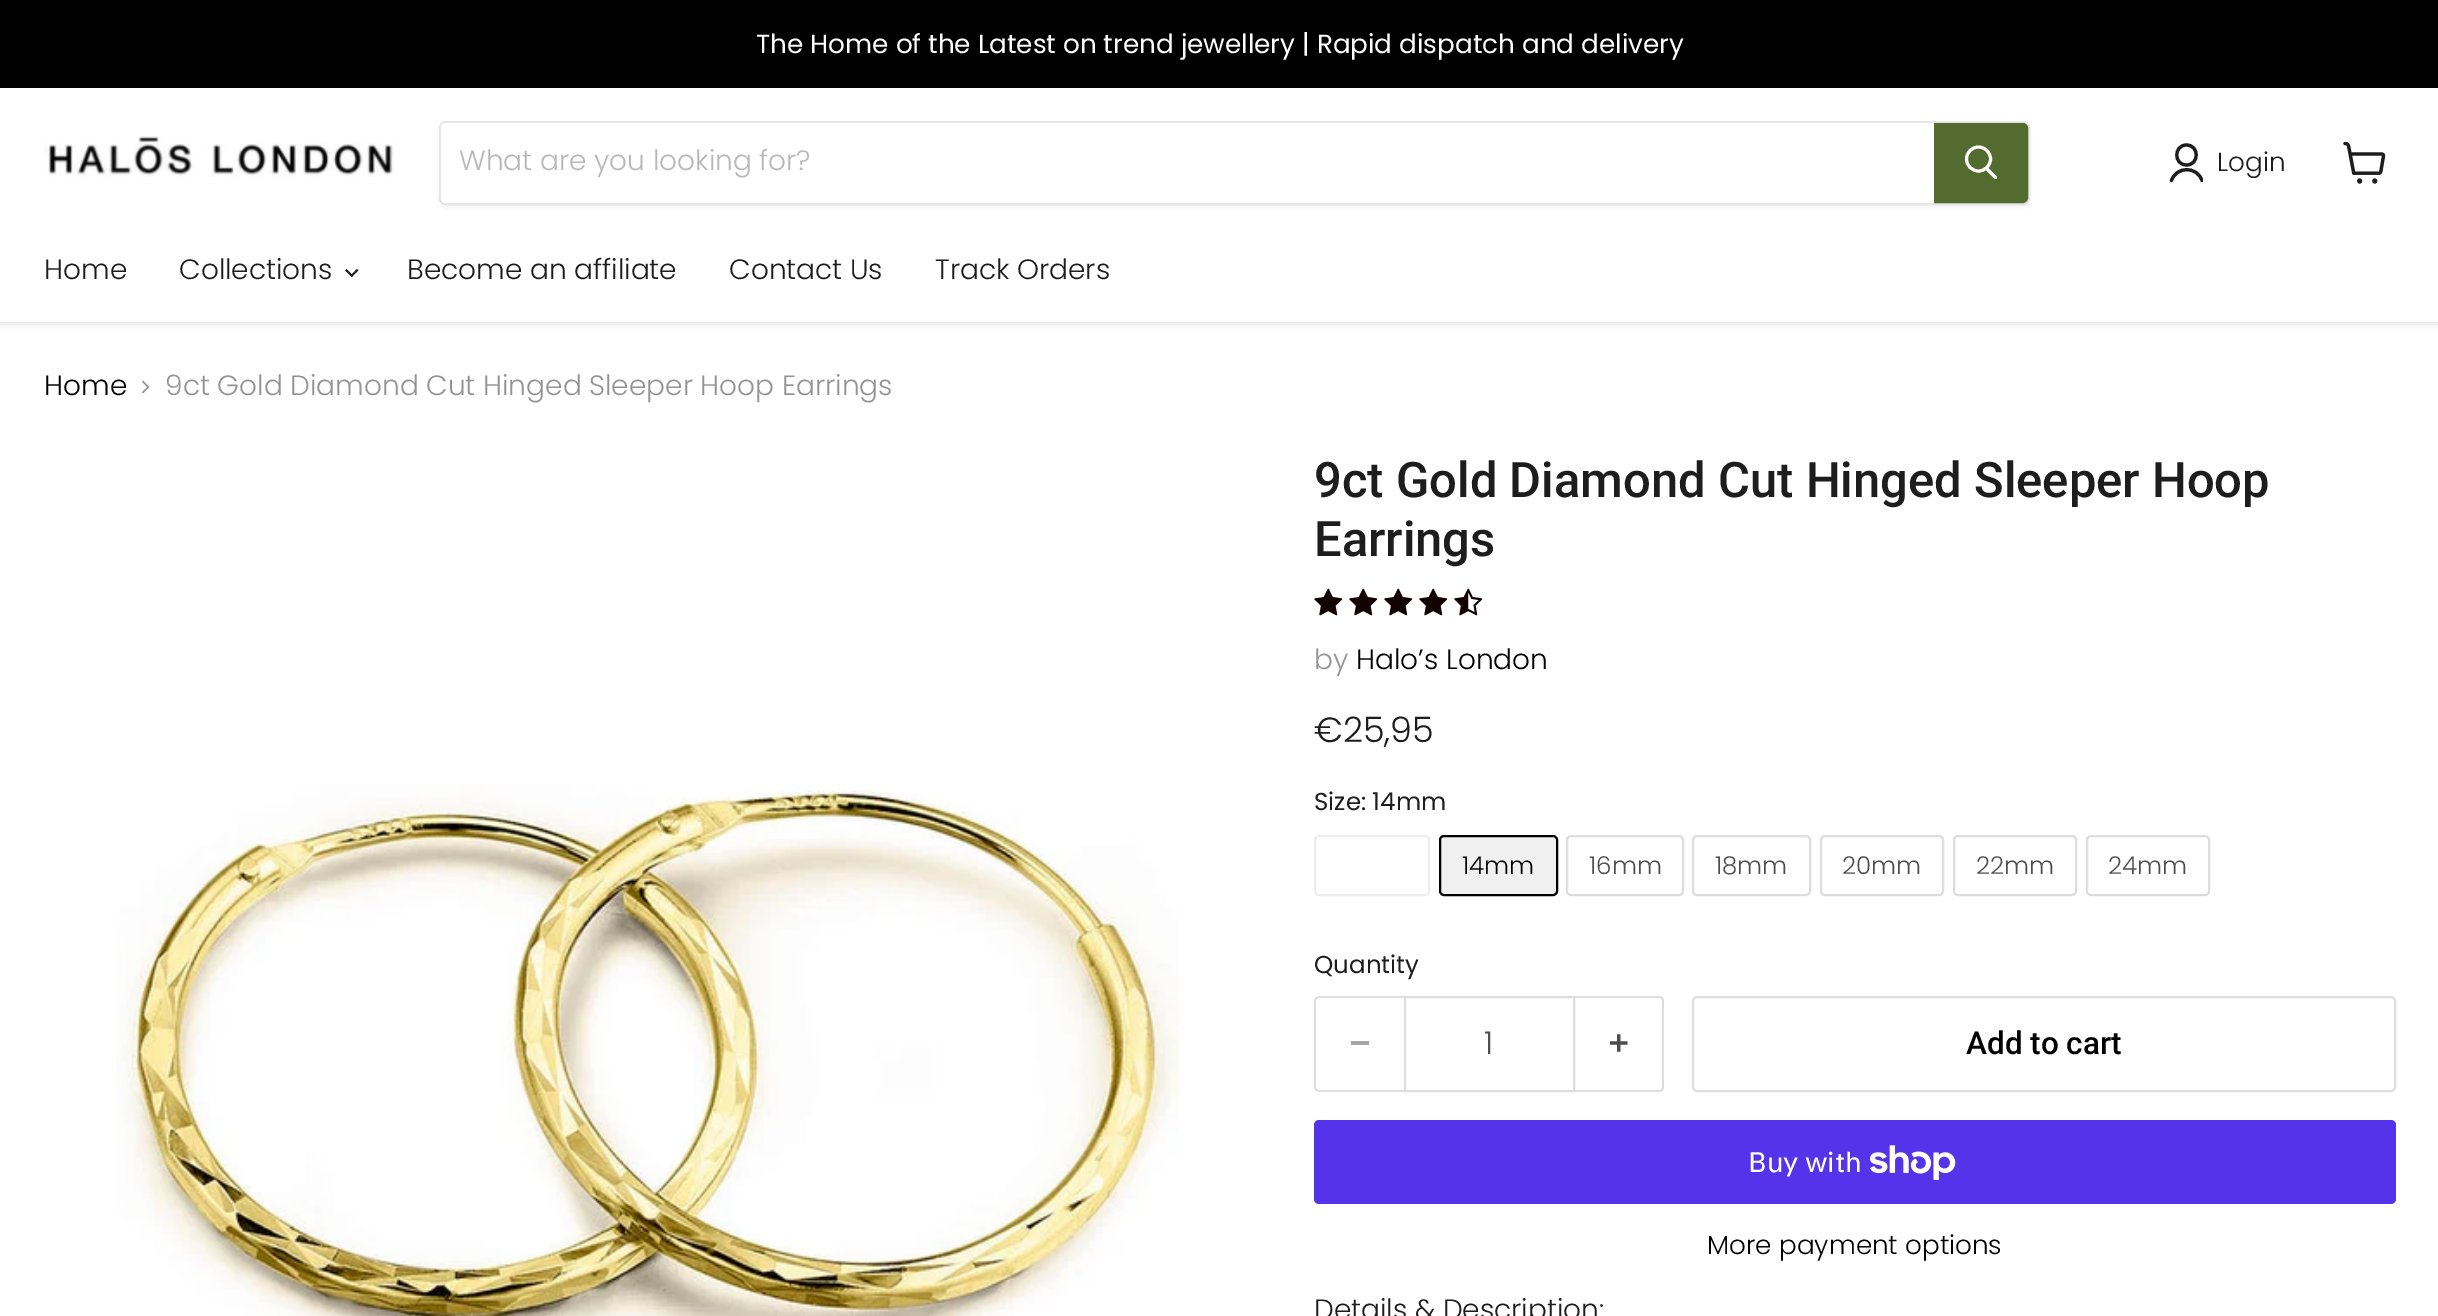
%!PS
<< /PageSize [2438 1316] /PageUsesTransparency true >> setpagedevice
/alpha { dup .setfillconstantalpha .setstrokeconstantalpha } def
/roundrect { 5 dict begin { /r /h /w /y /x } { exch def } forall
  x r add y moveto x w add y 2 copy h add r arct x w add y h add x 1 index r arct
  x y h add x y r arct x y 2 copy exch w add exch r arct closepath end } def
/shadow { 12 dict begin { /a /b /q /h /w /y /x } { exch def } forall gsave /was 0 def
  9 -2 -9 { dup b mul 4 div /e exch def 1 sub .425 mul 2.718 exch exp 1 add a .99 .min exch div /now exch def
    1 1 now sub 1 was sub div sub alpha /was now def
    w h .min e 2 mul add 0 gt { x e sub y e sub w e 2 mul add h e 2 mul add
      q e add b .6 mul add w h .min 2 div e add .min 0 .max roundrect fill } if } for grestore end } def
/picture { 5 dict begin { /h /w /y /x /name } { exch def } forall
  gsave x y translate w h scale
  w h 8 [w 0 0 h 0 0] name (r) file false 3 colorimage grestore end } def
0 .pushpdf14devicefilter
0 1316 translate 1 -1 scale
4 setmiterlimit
1 setgray
0 0 2438 1316 rectfill
gsave
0 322 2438 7 rectclip
0.502 setgray
0 89 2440 235 0 3.5 0.25 shadow
grestore
0 setgray
0 0 2438 88 rectfill
/Poppins-Regular [26.25 0 0 -26.25 0 0] selectfont
1 setgray
756 53 moveto (The Home of the Latest on trend jewellery | Rapid dispatch and delivery) show
(img1.rgb) 44 136 350 41 picture
gsave
newpath 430 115 moveto 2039 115 lineto 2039 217 lineto 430 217 lineto closepath 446 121 moveto 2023 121 lineto 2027 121 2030 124 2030 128 curveto 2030 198 lineto 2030 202 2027 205 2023 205 curveto 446 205 lineto 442 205 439 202 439 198 curveto 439 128 lineto 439 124 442 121 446 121 curveto closepath eoclip newpath
0.502 setgray
439 124 1591 84 7 2.5 0.11 shadow
grestore
0.2 alpha
0.502 setgray
2 setlinewidth
440 122 1589 82 6 roundrect stroke
1 alpha
1 setgray
newpath 446 123 moveto 1934 123 lineto 1934 203 lineto 446 203 lineto 443 203 441 201 441 198 curveto 441 128 lineto 441 125 443 123 446 123 curveto closepath fill
/Poppins-Light [28 0 0 -28 0 0] selectfont
0.722 setgray
459 170 moveto (What are you looking for?) show
0.325 0.42 0.184 setrgbcolor
newpath 1935 124 moveto 2023 124 lineto 2025 124 2027 126 2027 128 curveto 2027 198 lineto 2027 200 2025 202 2023 202 curveto 1935 202 lineto closepath gsave fill grestore
stroke
1 setgray
3 setlinewidth
1 setlinecap
newpath 1995.5 177.5 moveto 1987 169 lineto stroke
0 setlinecap
newpath 1978.5 159 12 0 360 arc closepath stroke
0.114 setgray
3.2 setlinewidth
1 setlinecap
1 setlinejoin
newpath 2186.5 165 moveto 2199.5 165 2199.5 145 2186.5 145 curveto 2173.5 145 2173.5 165 2186.5 165 curveto closepath stroke
gsave
2168 142 35 42 rectclip
newpath 2202 180.5 moveto 2197 166 2176.5 166 2171.5 180.5 curveto stroke
grestore
/Poppins-Light [26.25 0 0 -26.25 0 0] selectfont
2217 171 moveto (Login) show
(img2.rgb) 2343 142 43 42 picture
/Poppins-Light [28 0 0 -28 0 0] selectfont
44 279 moveto (Home) show
179 279 moveto (Collections) show
(img3.rgb) 345 268 14 10 picture
407 279 moveto (Become an affiliate) show
729 279 moveto (Contact Us) show
935 279 moveto (Track Orders) show
0 setgray
44 395 moveto (Home) show
(img4.rgb) 142 380 8 13 picture
0.58 setgray
165 395 moveto (9ct Gold Diamond Cut Hinged Sleeper Hoop Earrings) show
(img5.rgb) 116 784 1063 532 picture
/Roboto-Medium [49 0 0 -49 0 0] selectfont
0.114 setgray
1314 497 moveto (9ct Gold Diamond Cut Hinged Sleeper Hoop) show
1314 556 moveto (Earrings) show
(img6.rgb) 1314 588 29 28 picture
(img6.rgb) 1349 588 29 28 picture
(img6.rgb) 1384 588 29 28 picture
(img6.rgb) 1419 588 29 28 picture
(img7.rgb) 1454 588 29 28 picture
/Poppins-Light [28 0 0 -28 0 0] selectfont
0.58 setgray
1314 669 moveto (by) show
0 setgray
1356 669 moveto (Halo’s London) show
/Poppins-Light [35 0 0 -35 0 0] selectfont
0.114 setgray
1314 742 moveto (€25,95) show
/Poppins-Regular [24.5 0 0 -24.5 0 0] selectfont
1314 810 moveto (Size: 14mm) show
0.933 setgray
2 setlinewidth
0 setlinecap
0 setlinejoin
1315 836 114 59 4 roundrect stroke
0.941 setgray
1440 836 117 59 4 roundrect gsave fill grestore
0 setgray
stroke
/Poppins-Light [24.5 0 0 -24.5 0 0] selectfont
1462 874 moveto (14mm) show
0.867 setgray
1567 836 116 59 4 roundrect stroke
0.302 setgray
1589 874 moveto (16mm) show
0.867 setgray
1693 836 117 59 4 roundrect stroke
0.302 setgray
1715 874 moveto (18mm) show
0.867 setgray
1821 836 122 59 4 roundrect stroke
0.302 setgray
1842 874 moveto (20mm) show
0.867 setgray
1954 836 122 59 4 roundrect stroke
0.302 setgray
1976 874 moveto (22mm) show
0.867 setgray
2087 836 122 59 4 roundrect stroke
0.302 setgray
2108 874 moveto (24mm) show
/Poppins-Regular [24.5 0 0 -24.5 0 0] selectfont
0.114 setgray
1314 973 moveto (Quantity) show
0.867 setgray
newpath 1320 996 moveto 1404 996 lineto 1404 1092 lineto 1320 1092 lineto 1317 1092 1314 1090 1314 1087 curveto 1314 1001 lineto 1314 998 1317 996 1320 996 curveto closepath 1320 998 moveto 1404 998 lineto 1404 1090 lineto 1320 1090 lineto 1318 1090 1316 1089 1316 1087 curveto 1316 1001 lineto 1316 999 1318 998 1320 998 curveto closepath eofill
0.651 setgray
1351 1041 18 4 rectfill
0.867 setgray
1405 997 169 94 rectstroke
/Poppins-Light [31.5 0 0 -31.5 0 0] selectfont
0.302 setgray
1484 1054 moveto (1) show
0.867 setgray
newpath 1575 996 moveto 1659 996 lineto 1662 996 1664 998 1664 1001 curveto 1664 1087 lineto 1664 1090 1662 1092 1659 1092 curveto 1575 1092 lineto closepath 1575 998 moveto 1659 998 lineto 1661 998 1662 999 1662 1001 curveto 1662 1087 lineto 1662 1089 1661 1090 1659 1090 curveto 1575 1090 lineto closepath eofill
(img8.rgb) 1610 1034 18 18 picture
1693 997 702 94 4 roundrect stroke
/Roboto-Medium [31.5 0 0 -31.5 0 0] selectfont
0 setgray
1966 1054 moveto (Add to cart) show
0.329 0.2 0.922 setrgbcolor
1314 1120 1082 84 5 roundrect fill
/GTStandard-Regular [28 0 0 -28 0 0] selectfont
1 setgray
1748 1172 moveto (Buy with) show
(img9.rgb) 1870 1145 86 35 picture
/Poppins-Light [26.25 0 0 -26.25 0 0] selectfont
0 setgray
1707 1254 moveto (More payment options) show
/Poppins-Light [28 0 0 -28 0 0] selectfont
0.114 setgray
1314 1319 moveto (Details & Description:) show
.poppdf14devicefilter showpage
